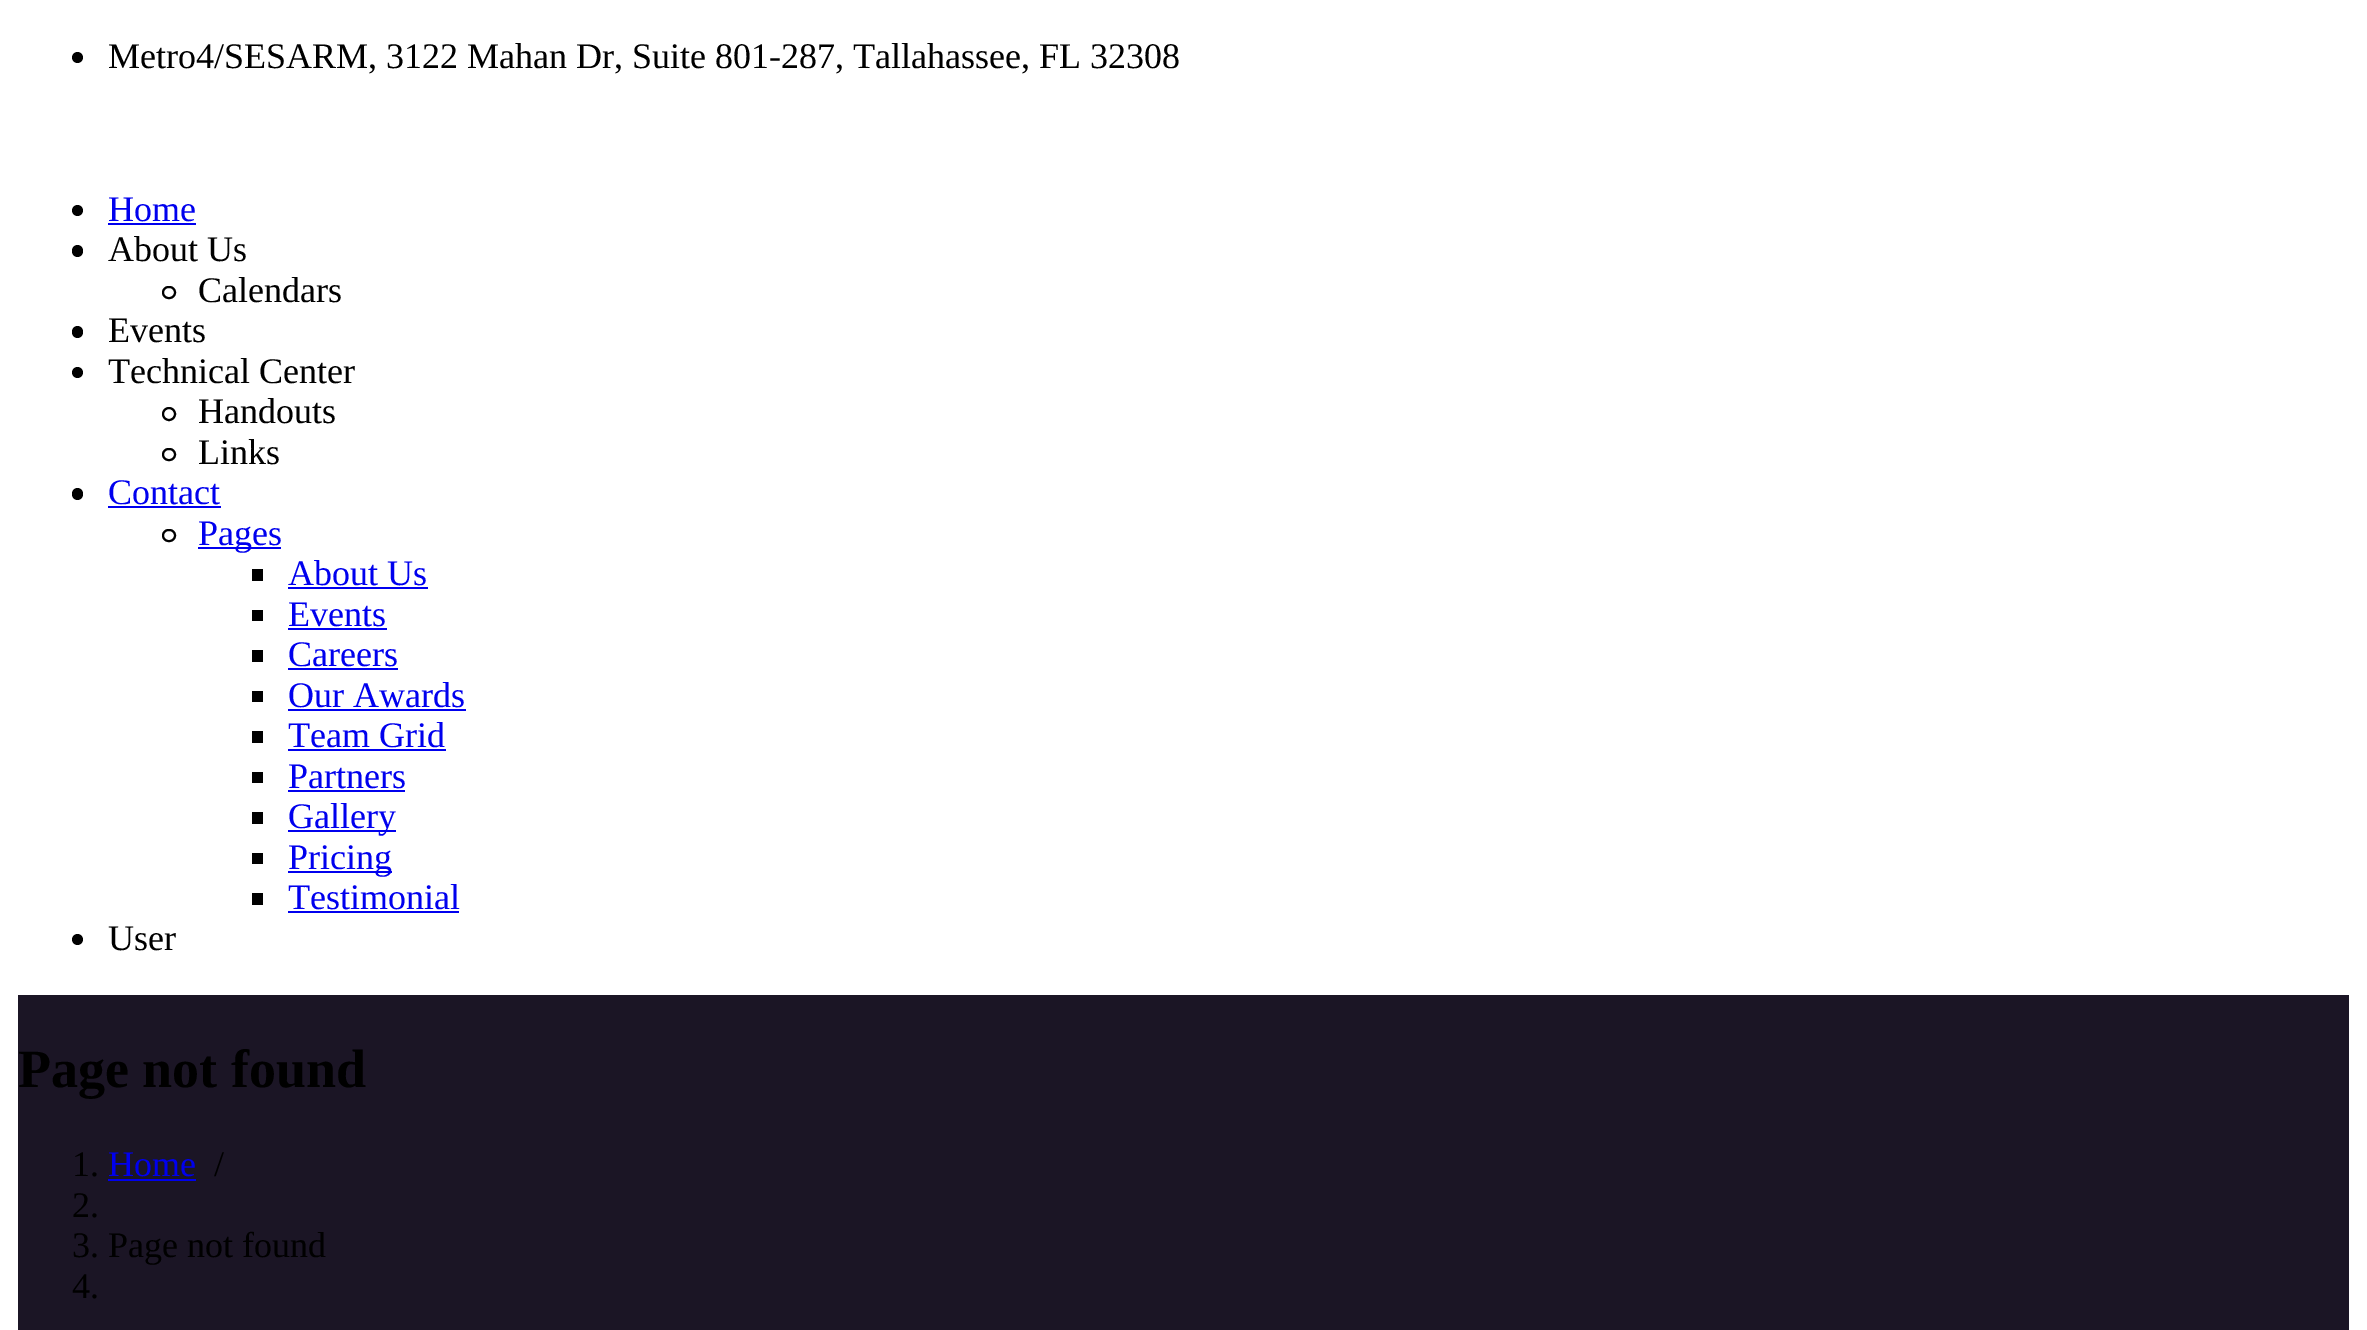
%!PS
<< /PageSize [2367 1330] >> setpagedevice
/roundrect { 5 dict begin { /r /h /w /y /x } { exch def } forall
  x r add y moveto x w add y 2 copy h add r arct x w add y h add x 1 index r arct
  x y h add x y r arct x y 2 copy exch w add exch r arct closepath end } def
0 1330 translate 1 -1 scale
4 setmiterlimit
1 setgray
0 0 2367 1330 rectfill
0 setgray
newpath 77.5 57.5 5.5 0 360 arc closepath fill
/LiberationSerif-Regular [36 0 0 -36 0 0] selectfont
108 68 moveto (Metro4/SESARM, 3122 Mahan Dr, Suite 801-287, Tallahassee, FL 32308) show
newpath 77.5 210.5 5.5 0 360 arc closepath fill
0 0 0.933 setrgbcolor
108 221 moveto (Home) show
108 223 88 2 rectfill
0 setgray
72 245 11 12 5.5 roundrect fill
108 261 moveto (About Us) show
2 setlinewidth
163 287 12 11 5.5 roundrect stroke
198 302 moveto (Calendars) show
72 326 11 12 5.5 roundrect fill
108 342 moveto (Events) show
newpath 77.5 372.5 5.5 0 360 arc closepath fill
108 383 moveto (Technical Center) show
newpath 169 414 6 0 360 arc closepath stroke
198 423 moveto (Handouts) show
163 449 12 11 5.5 roundrect stroke
198 464 moveto (Links) show
72 488 11 12 5.5 roundrect fill
0 0 0.933 setrgbcolor
108 504 moveto (Contact) show
108 506 113 2 rectfill
0 setgray
163 530 12 11 5.5 roundrect stroke
0 0 0.933 setrgbcolor
198 547 83 2 rectfill
198 545 moveto (Pages) show
0 setgray
252 569 11 12 rectfill
0 0 0.933 setrgbcolor
288 585 moveto (About Us) show
288 587 140 2 rectfill
0 setgray
252 610 11 11 rectfill
0 0 0.933 setrgbcolor
288 626 moveto (Events) show
288 628 99 2 rectfill
0 setgray
252 650 11 12 rectfill
0 0 0.933 setrgbcolor
288 666 moveto (Careers) show
288 668 110 2 rectfill
0 setgray
252 691 11 11 rectfill
0 0 0.933 setrgbcolor
288 707 moveto (Our Awards) show
288 709 178 2 rectfill
0 setgray
252 731 11 12 rectfill
0 0 0.933 setrgbcolor
288 747 moveto (Team Grid) show
288 749 158 2 rectfill
0 setgray
252 772 11 11 rectfill
0 0 0.933 setrgbcolor
288 788 moveto (Partners) show
288 790 117 2 rectfill
0 setgray
252 812 11 12 rectfill
0 0 0.933 setrgbcolor
288 830 108 2 rectfill
288 828 moveto (Gallery) show
0 setgray
252 853 11 11 rectfill
0 0 0.933 setrgbcolor
288 871 104 2 rectfill
288 869 moveto (Pricing) show
0 setgray
252 893 11 12 rectfill
0 0 0.933 setrgbcolor
288 909 moveto (Testimonial) show
288 911 171 2 rectfill
0 setgray
newpath 77.5 939.5 5.5 0 360 arc closepath fill
108 950 moveto (User) show
0.106 0.082 0.145 setrgbcolor
18 995 2331 335 rectfill
/LiberationSerif-Bold [54 0 0 -54 0 0] selectfont
0 setgray
18 1087 moveto (Page not found) show
/LiberationSerif-Regular [36 0 0 -36 0 0] selectfont
72 1176 moveto (1.) show
0 0 0.933 setrgbcolor
108 1176 moveto (Home) show
108 1179 88 2 rectfill
0 setgray
214 1176 moveto (/) show
72 1217 moveto (2.) show
72 1257 moveto (3. Page not found) show
72 1298 moveto (4.) show
showpage
